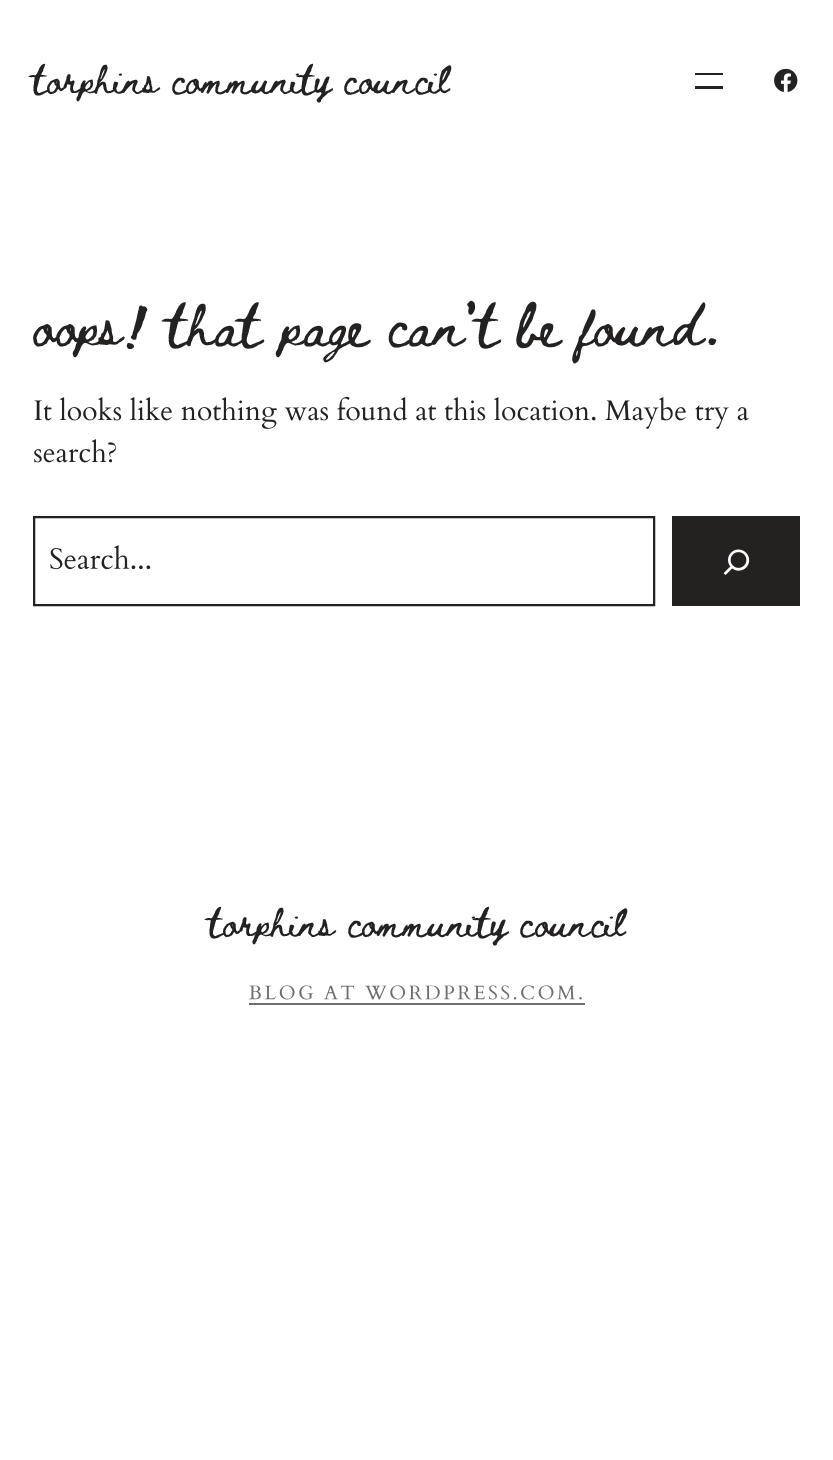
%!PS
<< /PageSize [833 1460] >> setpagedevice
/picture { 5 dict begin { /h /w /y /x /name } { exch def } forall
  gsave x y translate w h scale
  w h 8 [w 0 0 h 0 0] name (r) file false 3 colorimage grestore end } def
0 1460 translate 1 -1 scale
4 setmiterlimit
1 setgray
0 0 833 1460 rectfill
/BethEllen-Regular [28.4 0 0 -28.4 0 0] selectfont
0.141 0.129 0.129 setrgbcolor
33 93 moveto (torphins community council) show
695 73 28 2 rectfill
695 86 28 3 rectfill
(img1.rgb) 774 68 24 24 picture
/BethEllen-Regular [41.5 0 0 -41.5 0 0] selectfont
33 345 moveto (oops! that page can’t be found.) show
(img2.rgb) 34 396 715 33 picture
(img3.rgb) 34 439 82 24 picture
2 setlinewidth
34 517 620 88 rectstroke
(img4.rgb) 50 545 101 25 picture
672 516 128 90 rectfill
(img5.rgb) 723 549 27 26 picture
/BethEllen-Regular [28.4 0 0 -28.4 0 0] selectfont
209 936 moveto (torphins community council) show
(img6.rgb) 248 985 334 15 picture
0.431 setgray
249 1003 336 2 rectfill
showpage
